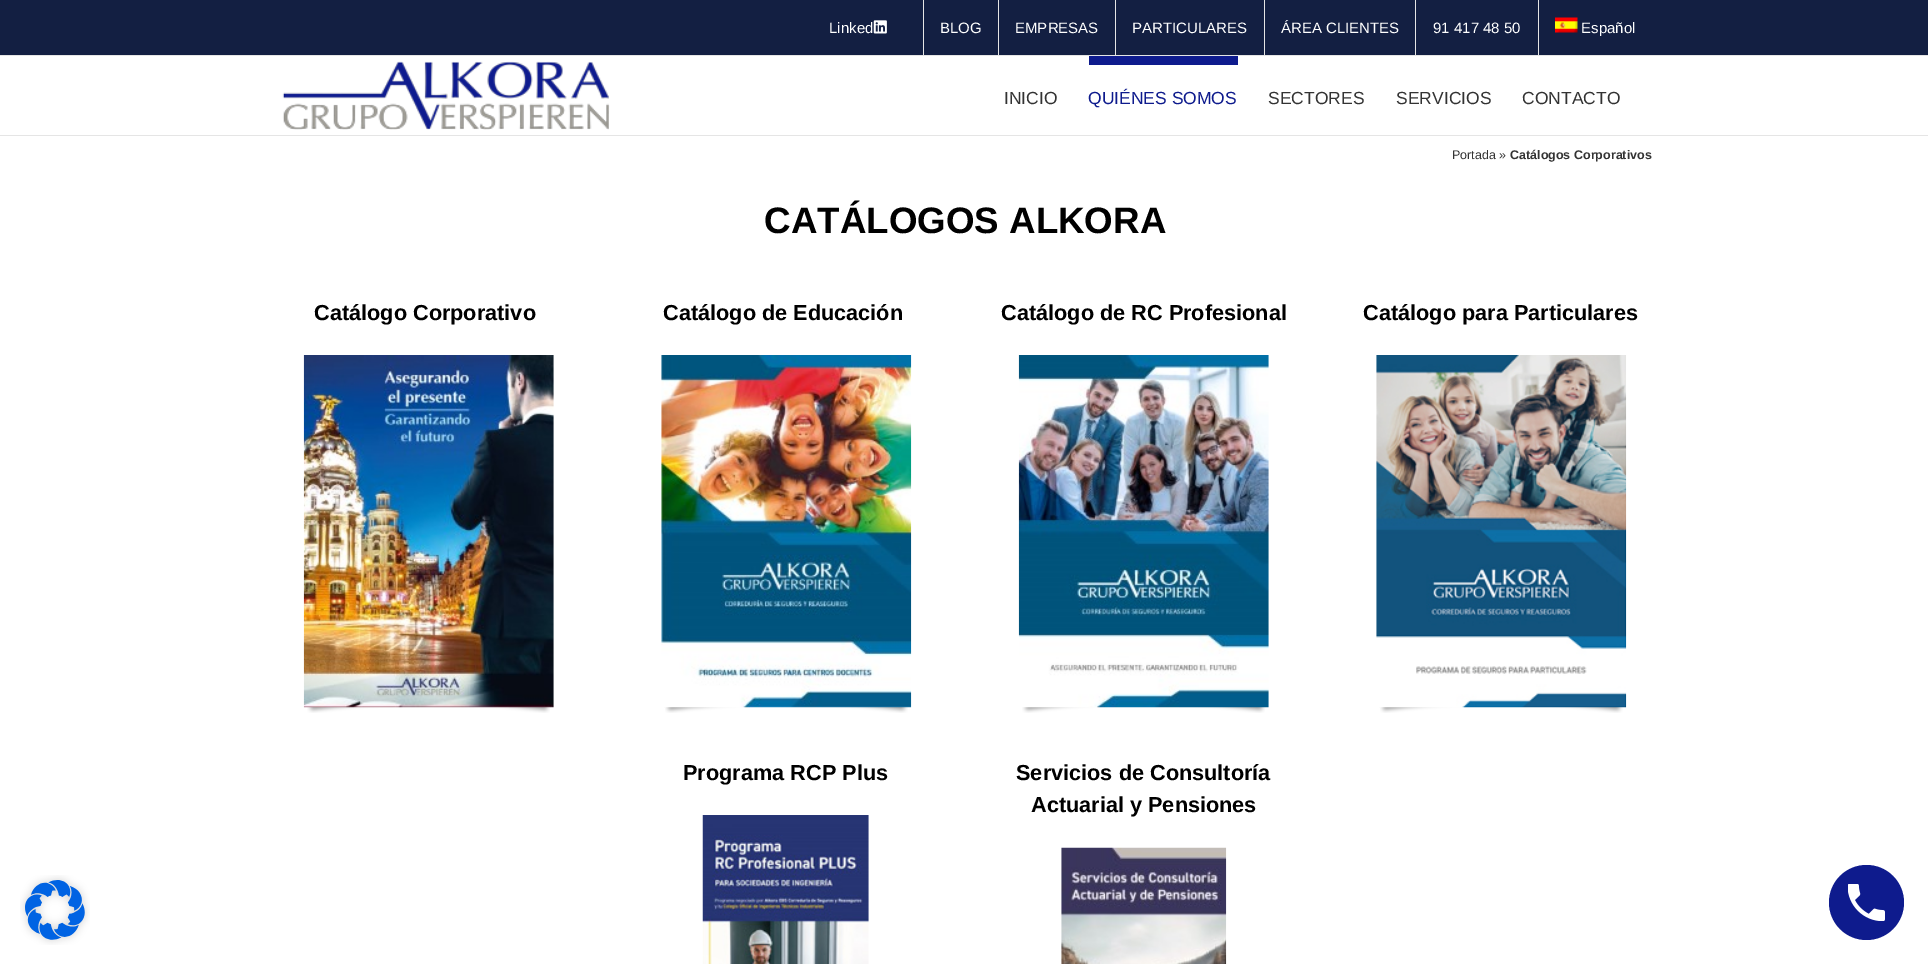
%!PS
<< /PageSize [1928 964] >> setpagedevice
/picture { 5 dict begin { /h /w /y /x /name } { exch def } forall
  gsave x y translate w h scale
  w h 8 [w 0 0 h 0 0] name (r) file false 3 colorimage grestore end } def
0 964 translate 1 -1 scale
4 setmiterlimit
1 setgray
0 0 1928 964 rectfill
0.075 0.122 0.259 setrgbcolor
0 0 1928 55 rectfill
0.898 setgray
0 55 1928 1 rectfill
/LiberationSans-Regular [15 0 0 -15 0 0] selectfont
1 setgray
829 33 moveto (Linked) show
(img1.rgb) 873 20 14 14 picture
0.898 setgray
923 0 1 55 rectfill
1 setgray
940 33 moveto (BLOG) show
0.898 setgray
998 0 1 55 rectfill
1 setgray
1015 33 moveto (EMPRESAS) show
0.898 setgray
1115 0 1 55 rectfill
1 setgray
1132 33 moveto (PARTICULARES) show
0.898 setgray
1264 0 1 55 rectfill
1 setgray
1281 33 moveto (ÁREA CLIENTES) show
0.898 setgray
1415 0 1 55 rectfill
1 setgray
1433 33 moveto (91 417 48 50) show
0.898 setgray
1538 0 1 55 rectfill
(img2.rgb) 1555 17 23 16 picture
1 setgray
1581 33 moveto (Español) show
0.898 setgray
0 135 1928 1 rectfill
(img3.rgb) 282 61 328 69 picture
/LiberationSans-Regular [17.5 0 0 -17.5 0 0] selectfont
0.2 setgray
1004 104 moveto (INICIO) show
0.055 0.106 0.553 setrgbcolor
1089 56 149 9 rectfill
1088 104 moveto (QUIÉNES SOMOS) show
0.2 setgray
1268 104 moveto (SECTORES) show
1396 104 moveto (SERVICIOS) show
1522 104 moveto (CONTACTO) show
/LiberationSans-Regular [12.5 0 0 -12.5 0 0] selectfont
1452 159 moveto (Portada ») show
/LiberationSans-Bold [12.5 0 0 -12.5 0 0] selectfont
1510 159 moveto (Catálogos Corporativos) show
/LiberationSans-Bold [36.75 0 0 -36.75 0 0] selectfont
0 setgray
764 233 moveto (CATÁLOGOS ALKORA) show
/LiberationSans-Bold [21.7 0 0 -21.7 0 0] selectfont
314 320 moveto (Catálogo Corporativo) show
(img5.rgb) 307 707 243 6 picture
(img4.rgb) 303 355 251 353 picture
663 320 moveto (Catálogo de Educación) show
(img7.rgb) 665 707 243 6 picture
(img6.rgb) 661 355 251 353 picture
1001 320 moveto (Catálogo de RC Profesional) show
(img9.rgb) 1022 707 243 6 picture
(img8.rgb) 1018 355 251 353 picture
1363 320 moveto (Catálogo para Particulares) show
(img11.rgb) 1380 707 243 6 picture
(img10.rgb) 1376 355 251 353 picture
683 780 moveto (Programa RCP Plus) show
(img12.rgb) 702 815 167 149 picture
1016 780 moveto (Servicios de Consultoría) show
1031 812 moveto (Actuarial y Pensiones) show
(img13.rgb) 1061 847 166 117 picture
(img14.rgb) 20 875 70 70 picture
0.055 0.106 0.553 setrgbcolor
newpath 1866.5 902.5 37.5 0 360 arc closepath fill
(img15.rgb) 1848 884 37 37 picture
showpage
